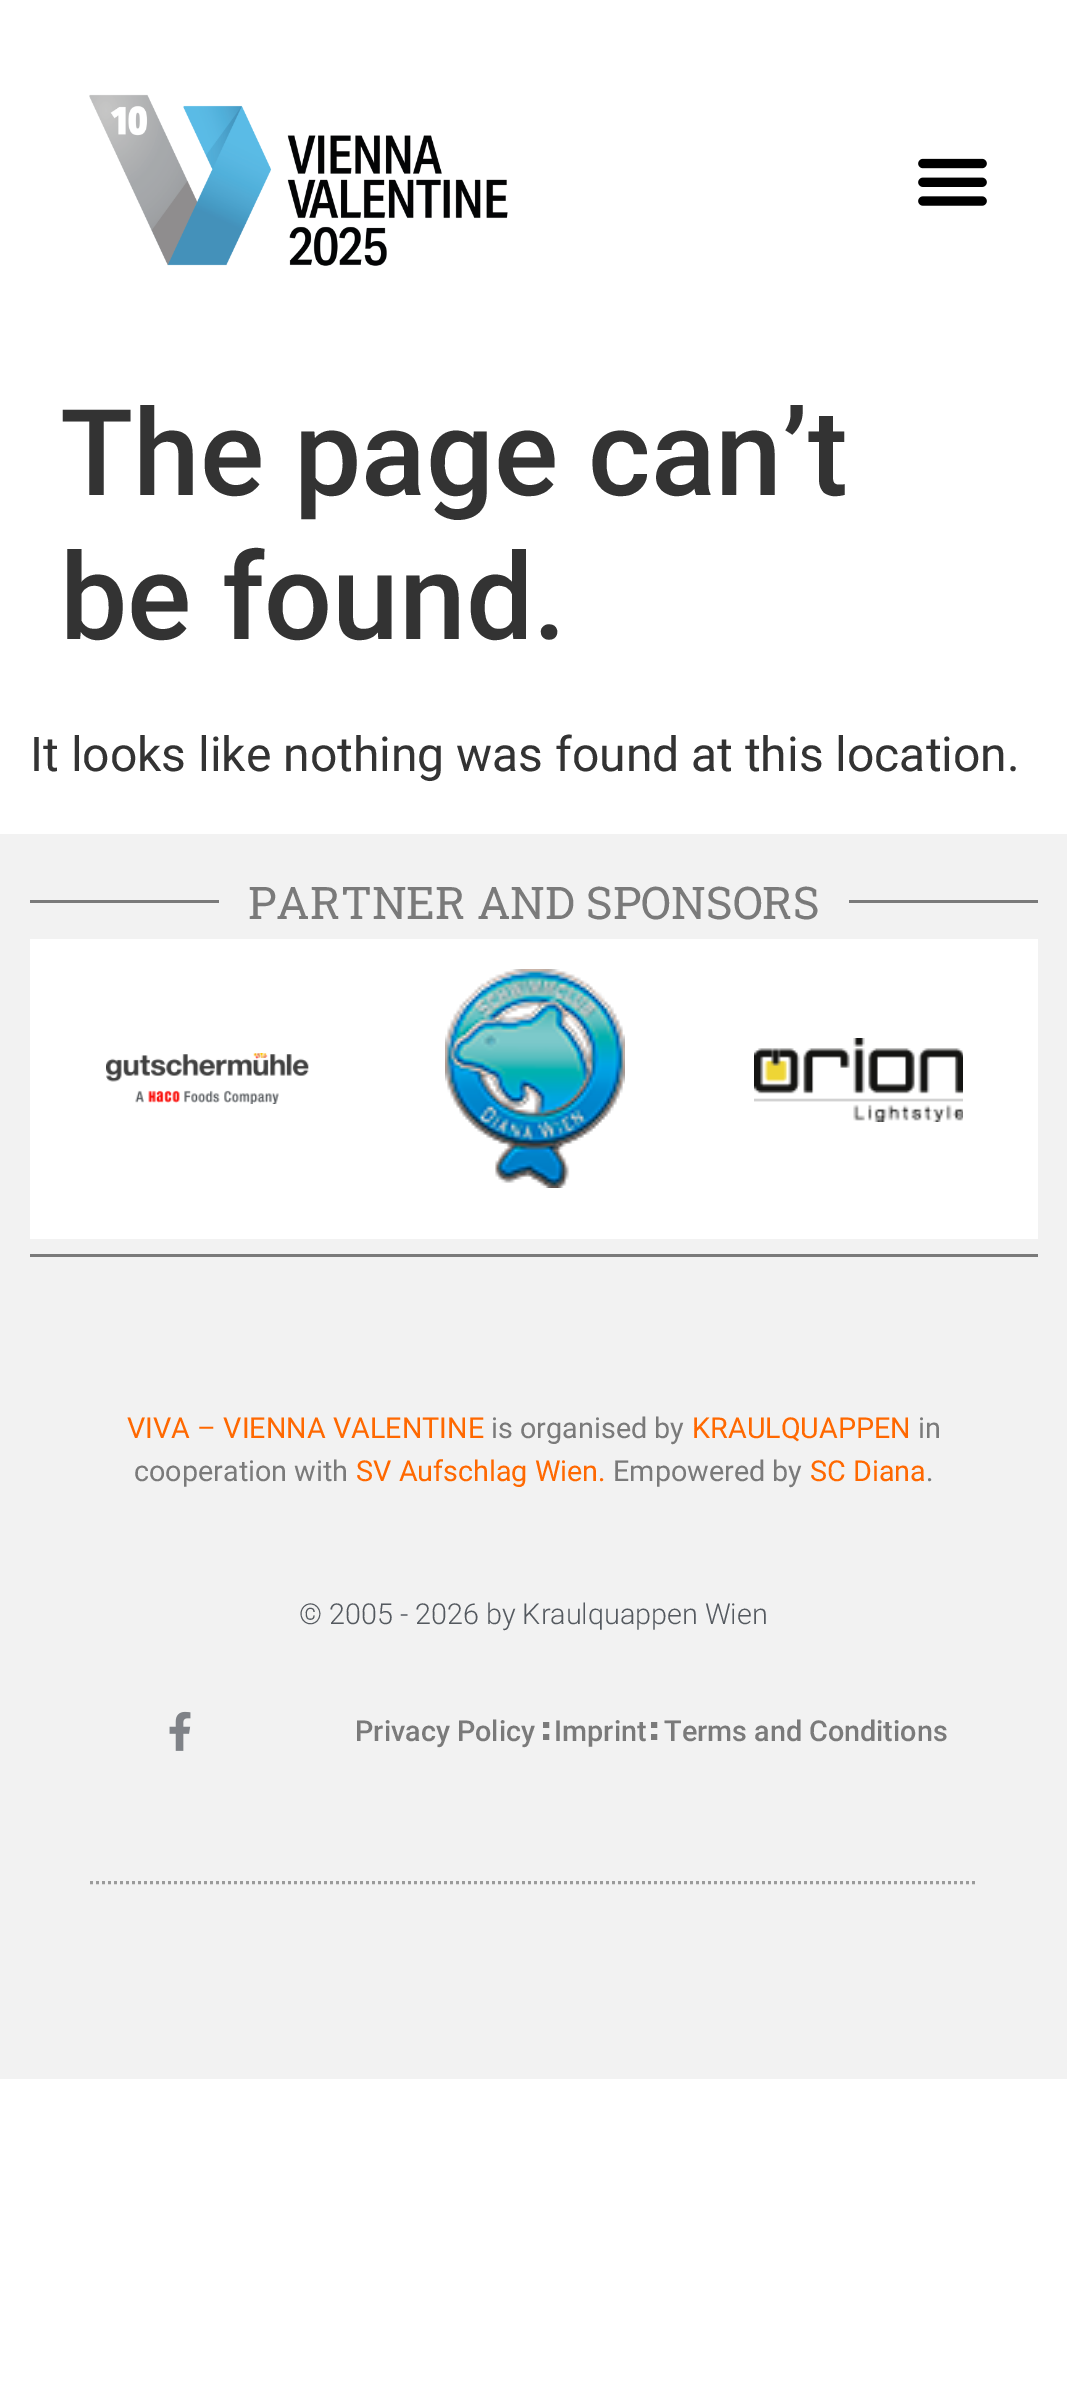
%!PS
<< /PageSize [1067 2399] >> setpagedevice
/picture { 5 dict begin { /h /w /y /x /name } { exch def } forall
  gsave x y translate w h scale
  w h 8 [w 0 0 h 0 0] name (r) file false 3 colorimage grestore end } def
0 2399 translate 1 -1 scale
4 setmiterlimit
1 setgray
0 0 1067 2399 rectfill
(img1.rgb) 89 94 419 172 picture
(img2.rgb) 918 158 69 48 picture
/Roboto-Medium [120 0 0 -120 0 0] selectfont
0.2 setgray
60 495 moveto (The page can’t) show
60 639 moveto (be found.) show
/Roboto-Regular [48 0 0 -48 0 0] selectfont
30 771 moveto (It looks like nothing was found at this location.) show
0.949 setgray
0 834 1067 1245 rectfill
0.478 setgray
30 900 189 3 rectfill
/RobotoSlab-Regular [45 0 0 -45 0 0] selectfont
248 919 moveto (PARTNER AND SPONSORS) show
849 900 189 3 rectfill
1 setgray
30 939 1008 300 rectfill
(img3.rgb) 106 1053 203 51 picture
(img4.rgb) 445 969 180 219 picture
(img5.rgb) 754 1038 209 84 picture
0.478 setgray
30 1254 1008 3 rectfill
/Roboto-Regular [28.75 0 0 -28.75 0 0] selectfont
1 0.408 0 setrgbcolor
127 1438 moveto (VIVA – VIENNA VALENTINE) show
0.478 setgray
491 1438 moveto (is organised by) show
1 0.408 0 setrgbcolor
692 1438 moveto (KRAULQUAPPEN) show
0.478 setgray
918 1438 moveto (in) show
134 1481 moveto (cooperation with) show
1 0.408 0 setrgbcolor
356 1481 moveto (SV Aufschlag Wien.) show
0.478 setgray
613 1481 moveto (Empowered by) show
1 0.408 0 setrgbcolor
810 1481 moveto (SC Diana) show
0.478 setgray
926 1481 moveto (.) show
0.608 setgray
3 setlinewidth
[3 3] 0 setdash
newpath 90 1882.5 moveto 978 1882.5 lineto stroke
/Roboto-Light [28.75 0 0 -28.75 0 0] selectfont
0.329 0.349 0.373 setrgbcolor
299 1624 moveto (© 2005 - 2026 by Kraulquappen Wien) show
(img6.rgb) 169 1711 22 40 picture
/Roboto-Medium [28.75 0 0 -28.75 0 0] selectfont
0.478 setgray
355 1741 moveto (Privacy Policy) show
6 setlinewidth
[] 0 setdash
newpath 546 1722 moveto 546 1728 lineto 546 1734 moveto 546 1740 lineto stroke
554 1741 moveto (Imprint) show
newpath 654 1722 moveto 654 1728 lineto 654 1734 moveto 654 1740 lineto stroke
664 1741 moveto (Terms and Conditions) show
showpage
